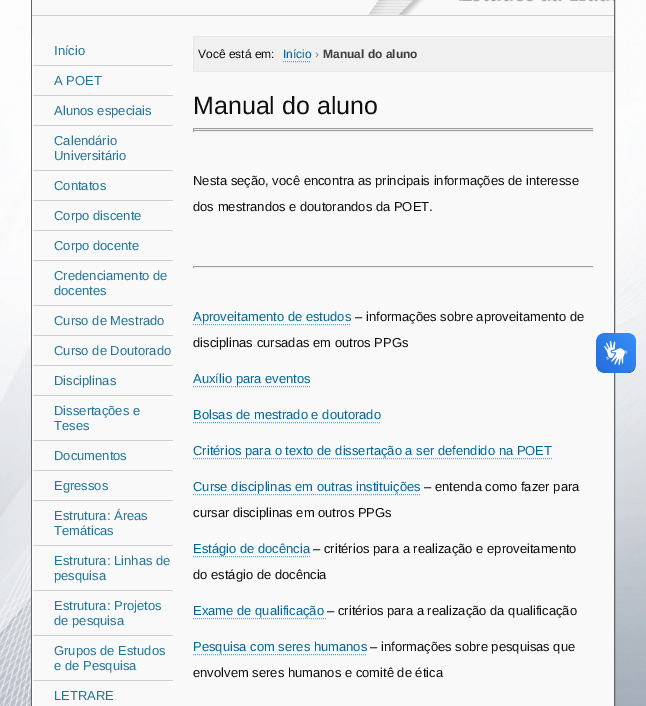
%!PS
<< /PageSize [646 706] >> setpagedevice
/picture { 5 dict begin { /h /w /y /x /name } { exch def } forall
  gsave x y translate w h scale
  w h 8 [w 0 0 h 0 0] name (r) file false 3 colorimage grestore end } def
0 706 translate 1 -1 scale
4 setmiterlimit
1 setgray
0 0 646 706 rectfill
(img1.rgb) 0 0 646 706 picture
0.396 setgray
31.5 -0.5 583 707 rectstroke
0.976 setgray
32 0 582 706 rectfill
0.812 setgray
32 15 582 1 rectfill
(img2.rgb) 458 0 156 2 picture
(img3.rgb) 368 0 56 15 picture
newpath 173 66 moveto 32 66 lineto 34 65 lineto 173 65 lineto closepath fill
1 setgray
newpath 32 66 moveto 32 36 lineto 34 36 lineto 34 65 lineto closepath fill
/LiberationSans-Regular [13 0 0 -13 0 0] selectfont
0.129 0.459 0.608 setrgbcolor
54 55 moveto (Início) show
0.812 setgray
newpath 173 96 moveto 32 96 lineto 34 95 lineto 173 95 lineto closepath fill
1 setgray
newpath 32 96 moveto 32 66 lineto 34 66 lineto 34 95 lineto closepath fill
0.129 0.459 0.608 setrgbcolor
54 85 moveto (A POET) show
0.812 setgray
newpath 173 126 moveto 32 126 lineto 34 125 lineto 173 125 lineto closepath fill
1 setgray
newpath 32 126 moveto 32 96 lineto 34 96 lineto 34 125 lineto closepath fill
0.129 0.459 0.608 setrgbcolor
54 115 moveto (Alunos especiais) show
0.812 setgray
newpath 173 171 moveto 32 171 lineto 34 170 lineto 173 170 lineto closepath fill
1 setgray
newpath 32 171 moveto 32 126 lineto 34 126 lineto 34 170 lineto closepath fill
0.129 0.459 0.608 setrgbcolor
54 145 moveto (Calendário) show
54 160 moveto (Universitário) show
0.812 setgray
newpath 173 201 moveto 32 201 lineto 34 200 lineto 173 200 lineto closepath fill
1 setgray
newpath 32 201 moveto 32 171 lineto 34 171 lineto 34 200 lineto closepath fill
0.129 0.459 0.608 setrgbcolor
54 190 moveto (Contatos) show
0.812 setgray
newpath 173 231 moveto 32 231 lineto 34 230 lineto 173 230 lineto closepath fill
1 setgray
newpath 32 231 moveto 32 201 lineto 34 201 lineto 34 230 lineto closepath fill
0.129 0.459 0.608 setrgbcolor
54 220 moveto (Corpo discente) show
0.812 setgray
newpath 173 261 moveto 32 261 lineto 34 260 lineto 173 260 lineto closepath fill
1 setgray
newpath 32 261 moveto 32 231 lineto 34 231 lineto 34 260 lineto closepath fill
0.129 0.459 0.608 setrgbcolor
54 250 moveto (Corpo docente) show
0.812 setgray
newpath 173 306 moveto 32 306 lineto 34 305 lineto 173 305 lineto closepath fill
1 setgray
newpath 32 306 moveto 32 261 lineto 34 261 lineto 34 305 lineto closepath fill
0.129 0.459 0.608 setrgbcolor
54 280 moveto (Credenciamento de) show
54 295 moveto (docentes) show
0.812 setgray
newpath 173 336 moveto 32 336 lineto 34 335 lineto 173 335 lineto closepath fill
1 setgray
newpath 32 336 moveto 32 306 lineto 34 306 lineto 34 335 lineto closepath fill
0.129 0.459 0.608 setrgbcolor
54 325 moveto (Curso de Mestrado) show
0.812 setgray
newpath 173 366 moveto 32 366 lineto 34 365 lineto 173 365 lineto closepath fill
1 setgray
newpath 32 366 moveto 32 336 lineto 34 336 lineto 34 365 lineto closepath fill
0.129 0.459 0.608 setrgbcolor
54 355 moveto (Curso de Doutorado) show
0.812 setgray
newpath 173 396 moveto 32 396 lineto 34 395 lineto 173 395 lineto closepath fill
1 setgray
newpath 32 396 moveto 32 366 lineto 34 366 lineto 34 395 lineto closepath fill
0.129 0.459 0.608 setrgbcolor
54 385 moveto (Disciplinas) show
0.812 setgray
newpath 173 441 moveto 32 441 lineto 34 440 lineto 173 440 lineto closepath fill
1 setgray
newpath 32 441 moveto 32 396 lineto 34 396 lineto 34 440 lineto closepath fill
0.129 0.459 0.608 setrgbcolor
54 415 moveto (Dissertações e) show
54 430 moveto (Teses) show
0.812 setgray
newpath 173 471 moveto 32 471 lineto 34 470 lineto 173 470 lineto closepath fill
1 setgray
newpath 32 471 moveto 32 441 lineto 34 441 lineto 34 470 lineto closepath fill
0.129 0.459 0.608 setrgbcolor
54 460 moveto (Documentos) show
0.812 setgray
newpath 173 501 moveto 32 501 lineto 34 500 lineto 173 500 lineto closepath fill
1 setgray
newpath 32 501 moveto 32 471 lineto 34 471 lineto 34 500 lineto closepath fill
0.129 0.459 0.608 setrgbcolor
54 490 moveto (Egressos) show
0.812 setgray
newpath 173 546 moveto 32 546 lineto 34 545 lineto 173 545 lineto closepath fill
1 setgray
newpath 32 546 moveto 32 501 lineto 34 501 lineto 34 545 lineto closepath fill
0.129 0.459 0.608 setrgbcolor
54 520 moveto (Estrutura: Áreas) show
54 535 moveto (Temáticas) show
0.812 setgray
newpath 173 591 moveto 32 591 lineto 34 590 lineto 173 590 lineto closepath fill
1 setgray
newpath 32 591 moveto 32 546 lineto 34 546 lineto 34 590 lineto closepath fill
0.129 0.459 0.608 setrgbcolor
54 565 moveto (Estrutura: Linhas de) show
54 580 moveto (pesquisa) show
0.812 setgray
newpath 173 636 moveto 32 636 lineto 34 635 lineto 173 635 lineto closepath fill
1 setgray
newpath 32 636 moveto 32 591 lineto 34 591 lineto 34 635 lineto closepath fill
0.129 0.459 0.608 setrgbcolor
54 610 moveto (Estrutura: Projetos) show
54 625 moveto (de pesquisa) show
0.812 setgray
newpath 173 681 moveto 32 681 lineto 34 680 lineto 173 680 lineto closepath fill
1 setgray
newpath 32 681 moveto 32 636 lineto 34 636 lineto 34 680 lineto closepath fill
0.129 0.459 0.608 setrgbcolor
54 655 moveto (Grupos de Estudos) show
54 670 moveto (e de Pesquisa) show
1 setgray
newpath 32 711 moveto 32 681 lineto 34 681 lineto 34 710 lineto closepath fill
0.129 0.459 0.608 setrgbcolor
54 700 moveto (LETRARE) show
0.941 setgray
194 37 420 34 rectfill
0.91 setgray
193 36 421 1 rectfill
193 71 421 1 rectfill
193 36 1 36 rectfill
/LiberationSans-Regular [12 0 0 -12 0 0] selectfont
0.059 setgray
198 58 moveto (Você está em:) show
0 0.4 0.6 setrgbcolor
283 58 moveto (Início) show
0.4 0.6 1 setrgbcolor
[1 1] 0 setdash
newpath 283 61.5 moveto 311 61.5 lineto stroke
0.502 setgray
315 58 moveto (›) show
/LiberationSans-Bold [12 0 0 -12 0 0] selectfont
0.239 setgray
323 58 moveto (Manual do aluno) show
/LiberationSans-Regular [25 0 0 -25 0 0] selectfont
0.059 setgray
193 114 moveto (Manual do aluno) show
0.624 setgray
193 128 401 1 rectfill
0.933 setgray
593 128 1 2 rectfill
193 129 401 1 rectfill
0.624 setgray
193 128 1 2 rectfill
193 130 401 1 rectfill
0.933 setgray
593 130 1 2 rectfill
193 131 401 1 rectfill
0.624 setgray
193 130 1 2 rectfill
/LiberationSans-Regular [13 0 0 -13 0 0] selectfont
0.059 setgray
193 185 moveto (Nesta seção, você encontra as principais informações de interesse) show
193 211 moveto (dos mestrandos e doutorandos da POET.) show
0.624 setgray
193 266 401 1 rectfill
0.933 setgray
593 266 1 2 rectfill
193 267 401 1 rectfill
0.624 setgray
193 266 1 2 rectfill
0 0.4 0.6 setrgbcolor
193 321 moveto (Aproveitamento de estudos) show
0.4 0.6 1 setrgbcolor
newpath 193 324.5 moveto 351 324.5 lineto stroke
0.059 setgray
355 321 moveto (– informações sobre aproveitamento de) show
193 347 moveto (disciplinas cursadas em outros PPGs) show
0 0.4 0.6 setrgbcolor
193 383 moveto (Auxílio para eventos) show
0.4 0.6 1 setrgbcolor
newpath 193 386.5 moveto 310 386.5 lineto stroke
0 0.4 0.6 setrgbcolor
193 419 moveto (Bolsas de mestrado e doutorado) show
0.4 0.6 1 setrgbcolor
newpath 193 422.5 moveto 381 422.5 lineto stroke
0 0.4 0.6 setrgbcolor
193 455 moveto (Critérios para o texto de dissertação a ser defendido na POET) show
0.4 0.6 1 setrgbcolor
newpath 193 458.5 moveto 552 458.5 lineto stroke
0 0.4 0.6 setrgbcolor
193 491 moveto (Curse disciplinas em outras instituições) show
0.4 0.6 1 setrgbcolor
newpath 193 494.5 moveto 420 494.5 lineto stroke
0.059 setgray
424 491 moveto (– entenda como fazer para) show
193 517 moveto (cursar disciplinas em outros PPGs) show
0 0.4 0.6 setrgbcolor
193 553 moveto (Estágio de docência) show
0.4 0.6 1 setrgbcolor
newpath 193 556.5 moveto 310 556.5 lineto stroke
0.059 setgray
313 553 moveto (– critérios para a realização e eproveitamento) show
193 579 moveto (do estágio de docência) show
0 0.4 0.6 setrgbcolor
193 615 moveto (Exame de qualificação) show
0.4 0.6 1 setrgbcolor
newpath 193 618.5 moveto 327 618.5 lineto stroke
0.059 setgray
327 615 moveto (– critérios para a realização da qualificação) show
0 0.4 0.6 setrgbcolor
193 651 moveto (Pesquisa com seres humanos) show
0.4 0.6 1 setrgbcolor
newpath 193 654.5 moveto 367 654.5 lineto stroke
0.059 setgray
370 651 moveto (– informações sobre pesquisas que) show
193 677 moveto (envolvem seres humanos e comitê de ética) show
(img4.rgb) 596 333 40 40 picture
(img5.rgb) 596 333 40 40 picture
showpage
